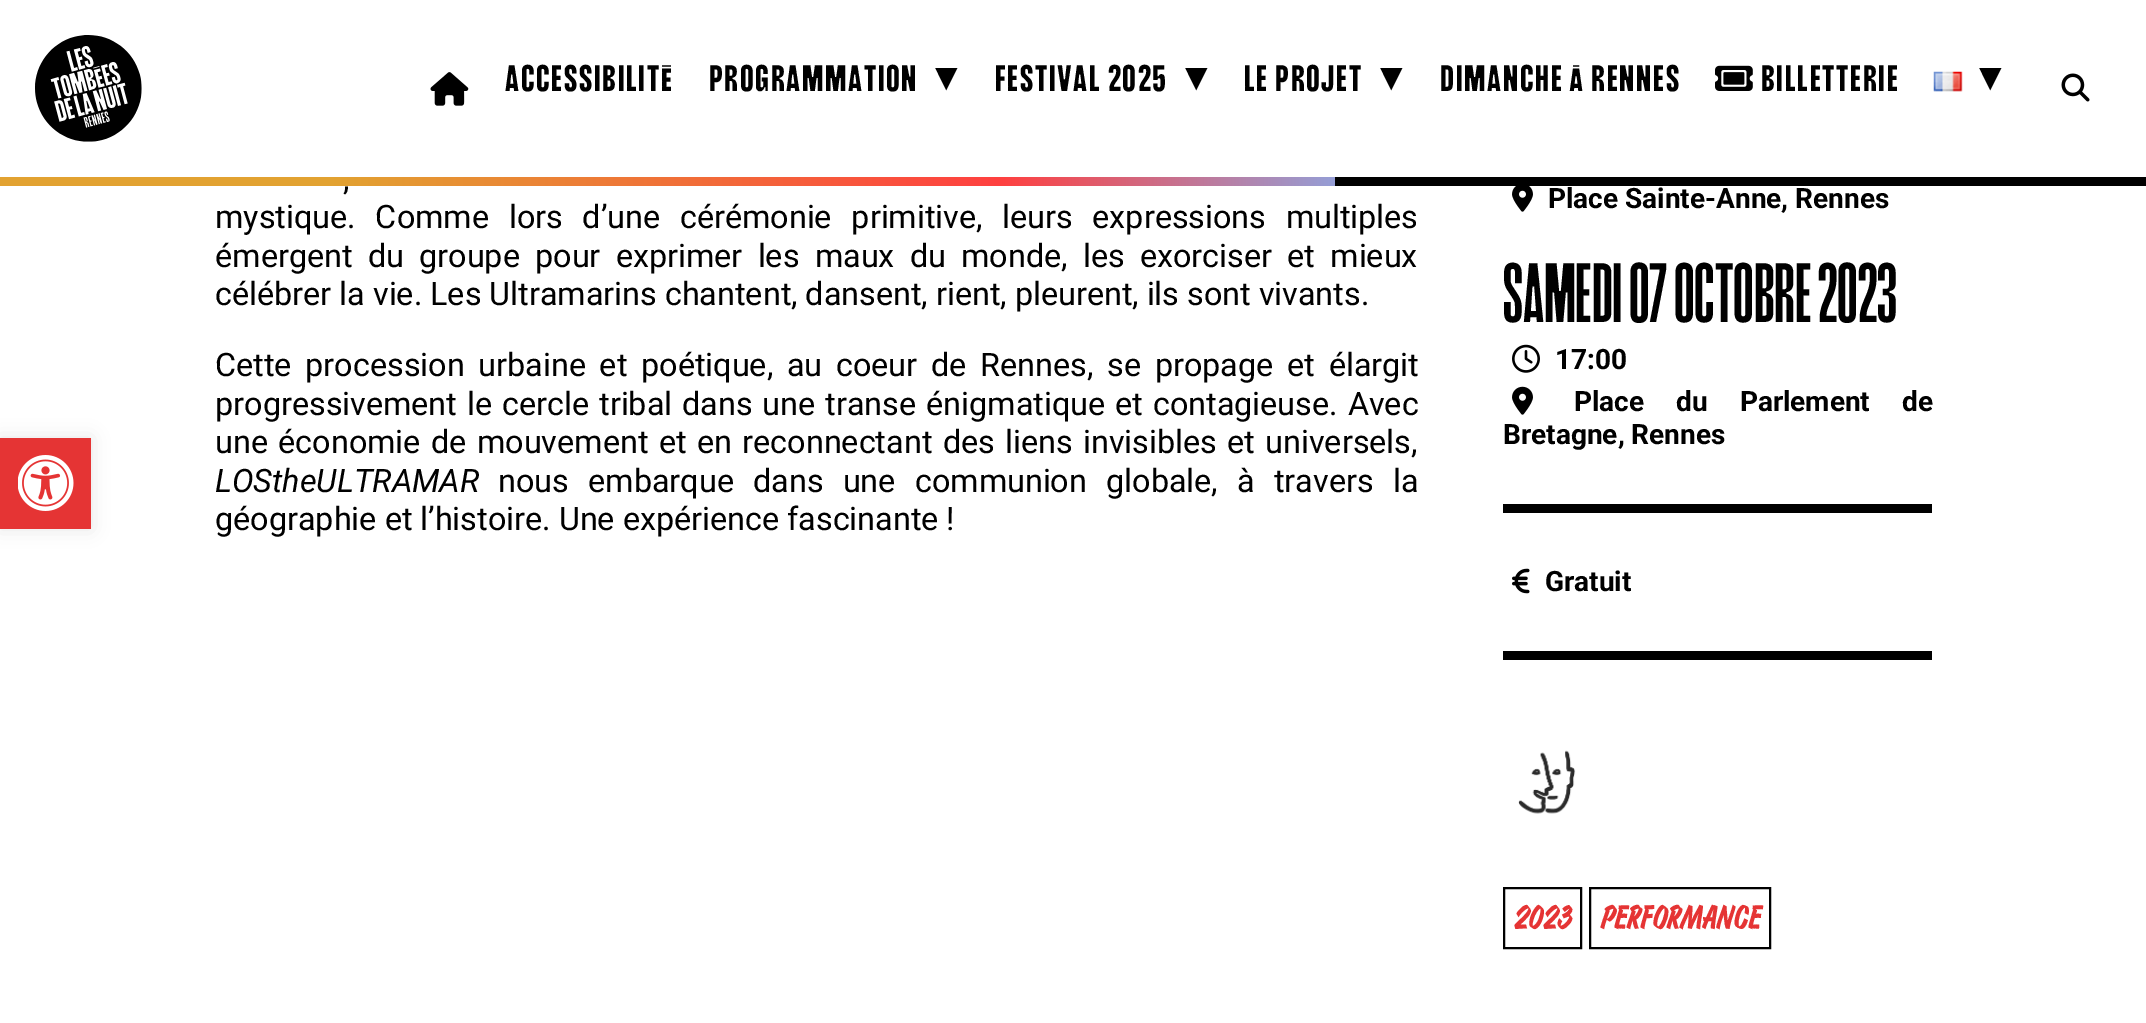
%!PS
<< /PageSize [2146 1023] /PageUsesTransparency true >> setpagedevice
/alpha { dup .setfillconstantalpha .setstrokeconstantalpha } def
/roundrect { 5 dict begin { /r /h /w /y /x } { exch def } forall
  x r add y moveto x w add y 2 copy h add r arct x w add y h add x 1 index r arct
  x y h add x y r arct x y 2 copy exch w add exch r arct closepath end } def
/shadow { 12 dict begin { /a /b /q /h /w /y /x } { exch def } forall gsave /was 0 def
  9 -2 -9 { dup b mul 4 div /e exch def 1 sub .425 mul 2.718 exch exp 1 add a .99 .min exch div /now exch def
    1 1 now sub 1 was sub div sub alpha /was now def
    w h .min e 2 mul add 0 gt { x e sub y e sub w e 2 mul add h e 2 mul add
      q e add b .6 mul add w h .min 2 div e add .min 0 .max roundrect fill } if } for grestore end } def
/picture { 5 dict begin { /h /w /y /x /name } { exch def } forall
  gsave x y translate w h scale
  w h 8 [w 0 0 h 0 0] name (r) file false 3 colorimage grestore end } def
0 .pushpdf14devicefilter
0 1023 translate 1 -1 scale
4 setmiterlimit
1 setgray
0 0 2146 1023 rectfill
(img1.rgb) 35 35 107 107 picture
(img2.rgb) 430 72 39 34 picture
/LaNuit-Thin [56 0 0 -56 0 0] selectfont
0 setgray
505 91 moveto 1.75 0 (ACCESSIBILITÉ) ashow
709 91 moveto 1.75 0 (PROGRAMMATION) ashow
/DejaVuSans-Regular [45 0 0 -45 0 0] selectfont
935 91 moveto 1.75 0 (▾) ashow
/LaNuit-Thin [56 0 0 -56 0 0] selectfont
995 91 moveto 1.75 0 (FESTIVAL 2025) ashow
/DejaVuSans-Regular [45 0 0 -45 0 0] selectfont
1185 91 moveto 1.75 0 (▾) ashow
/LaNuit-Thin [56 0 0 -56 0 0] selectfont
1244 91 moveto 1.75 0 (LE PROJET) ashow
/DejaVuSans-Regular [45 0 0 -45 0 0] selectfont
1380 91 moveto 1.75 0 (▾) ashow
/LaNuit-Thin [56 0 0 -56 0 0] selectfont
1440 91 moveto 1.75 0 (DIMANCHE À RENNES) ashow
(img3.rgb) 1715 65 38 26 picture
1761 91 moveto 1.75 0 (BILLETTERIE) ashow
(img4.rgb) 1933 71 30 21 picture
/DejaVuSans-Regular [45 0 0 -45 0 0] selectfont
1979 91 moveto 1.75 0 (▾) ashow
(img5.rgb) 2061 73 29 29 picture
1335 177 811 9 rectfill
gsave newpath 0 177 moveto 1335 177 lineto 1335 186 lineto 0 186 lineto closepath clip newpath
<< /ShadingType 2 /ColorSpace /DeviceRGB /Coords [0 181 1335 181] /Extend [true true] /Function << /FunctionType 3 /Domain [0 1] /Functions [<< /FunctionType 2 /Domain [0 1] /C0 [0.886 0.635 0.192] /C1 [0.886 0.635 0.192] /N 1 >> << /FunctionType 2 /Domain [0 1] /C0 [0.886 0.635 0.192] /C1 [1 0.251 0.251] /N 1 >> << /FunctionType 2 /Domain [0 1] /C0 [1 0.251 0.251] /C1 [0.584 0.62 0.839] /N 1 >>] /Bounds [0.25 0.75] /Encode [0 1 0 1 0 1] >> >> shfill grestore
0 438 91 91 0 9 0.1 shadow
0.898 0.204 0.204 setrgbcolor
0 438 91 91 rectfill
(img6.rgb) 18 455 56 56 picture
/Roboto-Regular [32.35 0 0 -32.35 0 0] selectfont
0 setgray
343 190 moveto 14 0 32 (,) widthshow
215 228 moveto 11.75 0 32 (mystique. Comme lors d’une cérémonie primitive, leurs expressions multiples) widthshow
215 267 moveto 7.25 0 32 (émergent du groupe pour exprimer les maux du monde, les exorciser et mieux) widthshow
215 305 moveto (célébrer la vie. Les Ultramarins chantent, dansent, rient, pleurent, ils sont vivants.) show
215 376 moveto 5.75 0 32 (Cette procession urbaine et poétique, au coeur de Rennes, se propage et élargit) widthshow
215 415 moveto 2 0 32 (progressivement le cercle tribal dans une transe énigmatique et contagieuse. Avec) widthshow
215 453 moveto 2.4 0 32 (une économie de mouvement et en reconnectant des liens invisibles et universels,) widthshow
/Roboto-Italic [32.35 0 0 -32.35 0 0] selectfont
215 492 moveto (LOStheULTRAMAR) show
/Roboto-Regular [32.35 0 0 -32.35 0 0] selectfont
498 492 moveto 11.25 0 32 (nous embarque dans une communion globale, à travers la) widthshow
215 530 moveto (géographie et l’histoire. Une expérience fascinante !) show
(img7.rgb) 1512 186 21 26 picture
/Roboto-Bold [28 0 0 -28 0 0] selectfont
1548 208 moveto (Place Sainte-Anne, Rennes) show
/LaNuit-Black [84 0 0 -84 0 0] selectfont
1503 322 moveto (samedi 07 octobre 2023) show
(img8.rgb) 1512 344 28 29 picture
/Roboto-Bold [28 0 0 -28 0 0] selectfont
1555 369 moveto (17:00) show
(img9.rgb) 1512 386 21 29 picture
1574 411 moveto 25 0 32 (Place du Parlement de) widthshow
1503 444 moveto (Bretagne, Rennes) show
1503 504 429 9 rectfill
(img10.rgb) 1512 568 18 26 picture
1545 591 moveto (Gratuit) show
1503 651 429 9 rectfill
(img11.rgb) 1518 750 58 64 picture
2 setlinewidth
1504 888 77 60 rectstroke
/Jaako-Bold [28 0 0 -28 0 0] selectfont
0.898 0.204 0.204 setrgbcolor
1514 929 moveto (2023) show
0 setgray
1590 888 180 60 rectstroke
0.898 0.204 0.204 setrgbcolor
1600 929 moveto (PERFORMANCE) show
.poppdf14devicefilter showpage
